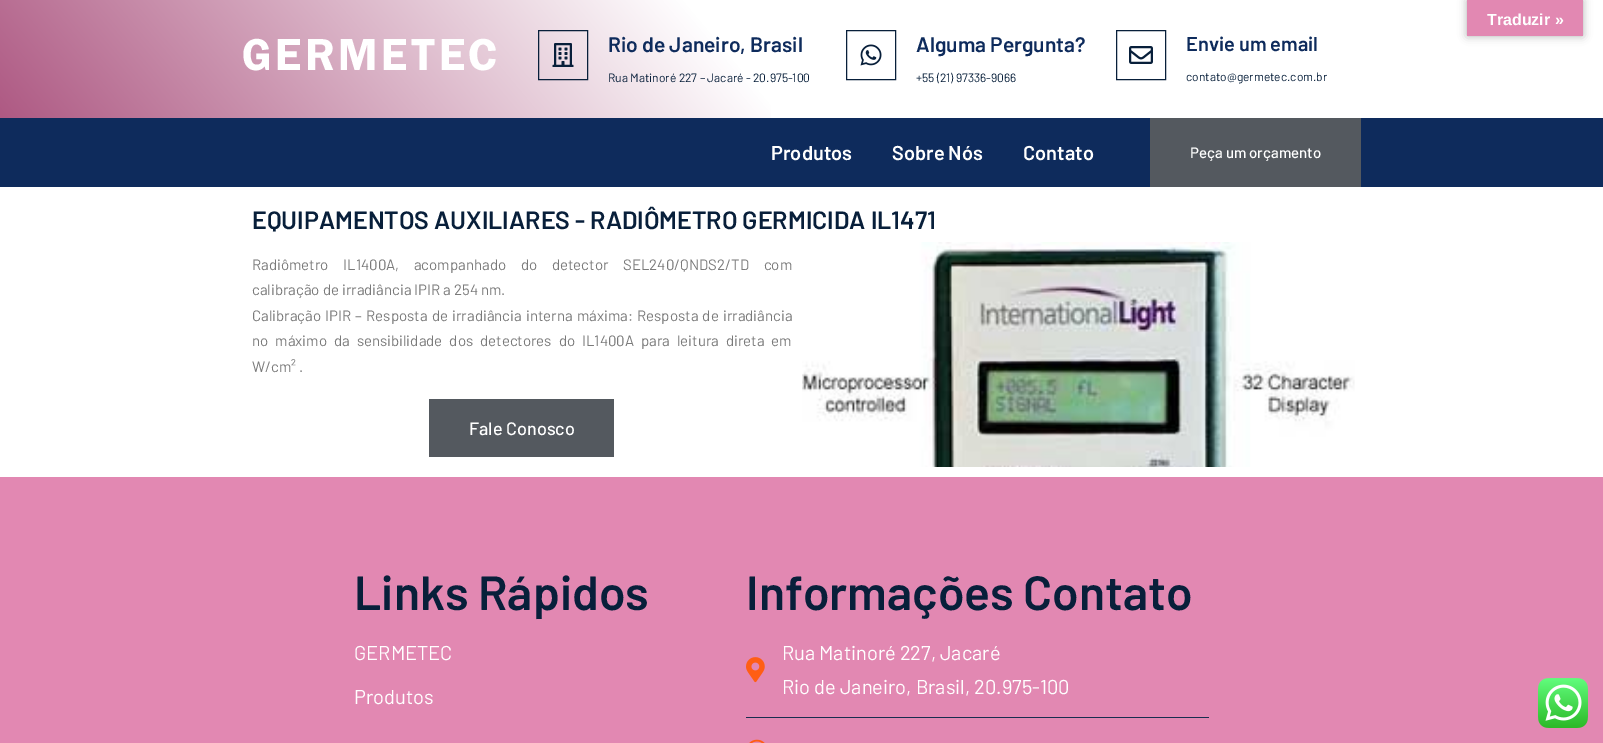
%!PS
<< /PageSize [1603 743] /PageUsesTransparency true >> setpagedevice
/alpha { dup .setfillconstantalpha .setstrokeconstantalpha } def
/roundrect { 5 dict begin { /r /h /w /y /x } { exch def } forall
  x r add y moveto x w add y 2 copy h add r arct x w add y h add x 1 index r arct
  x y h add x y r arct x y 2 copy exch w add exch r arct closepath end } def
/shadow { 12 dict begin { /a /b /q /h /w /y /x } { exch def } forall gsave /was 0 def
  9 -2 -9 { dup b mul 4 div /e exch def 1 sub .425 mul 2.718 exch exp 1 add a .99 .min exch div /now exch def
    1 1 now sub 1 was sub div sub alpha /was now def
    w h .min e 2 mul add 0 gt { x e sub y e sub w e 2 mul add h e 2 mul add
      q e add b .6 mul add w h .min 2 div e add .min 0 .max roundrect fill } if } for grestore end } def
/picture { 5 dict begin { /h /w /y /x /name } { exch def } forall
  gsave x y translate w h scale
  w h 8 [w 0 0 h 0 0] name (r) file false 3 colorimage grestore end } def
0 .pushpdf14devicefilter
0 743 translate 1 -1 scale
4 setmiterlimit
1 setgray
0 0 1603 743 rectfill
0 setgray
1467 0 116 36 0 4.5 0.3 shadow
0.886 0.533 0.698 setrgbcolor
1467 0 116 36 rectfill
/LiberationSans-Bold [16 0 0 -16 0 0] selectfont
1 setgray
1487 25 moveto (Traduzir ») show
gsave newpath 0 0 moveto 771 0 lineto 771 118 lineto 0 118 lineto closepath clip newpath
<< /ShadingType 2 /ColorSpace /DeviceRGB /Coords [302 478 1301 -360] /Extend [true true] /Function << /FunctionType 3 /Domain [0 1] /Functions [<< /FunctionType 2 /Domain [0 1] /C0 [0.682 0.349 0.514] /C1 [1 1 1] /N 1 >> << /FunctionType 2 /Domain [0 1] /C0 [1 1 1] /C1 [1 1 1] /N 1 >>] /Bounds [0.46] /Encode [0 1 0 1] >> >> shfill grestore
/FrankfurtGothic-Bold [45 0 0 -45 0 0] selectfont
242 70 moveto 3.5 0 (GERMETEC) ashow
0.031 0.122 0.227 setrgbcolor
538.5 30.5 49 49 rectstroke
(img1.rgb) 552 43 22 24 picture
/Barlow-SemiBold [21 0 0 -21 0 0] selectfont
0.055 0.169 0.361 setrgbcolor
608 52 moveto (Rio de Janeiro, Brasil) show
/Barlow-Regular [12 0 0 -12 0 0] selectfont
0.031 0.122 0.227 setrgbcolor
608 82 moveto (Rua Matinoré 227 – Jacaré - 20.975-100) show
846.5 30.5 49 49 rectstroke
(img2.rgb) 860 44 22 22 picture
/Barlow-SemiBold [21 0 0 -21 0 0] selectfont
0.055 0.169 0.361 setrgbcolor
916 52 moveto (Alguma Pergunta?) show
/Barlow-Regular [12 0 0 -12 0 0] selectfont
0.031 0.122 0.227 setrgbcolor
916 82 moveto (+55 \(21\) 97336-9066) show
1116.5 30.5 49 49 rectstroke
(img3.rgb) 1129 46 24 18 picture
/Barlow-SemiBold [20 0 0 -20 0 0] selectfont
0.055 0.169 0.361 setrgbcolor
1186 51 moveto (Envie um email) show
/Barlow-Regular [12 0 0 -12 0 0] selectfont
0.031 0.122 0.227 setrgbcolor
1186 81 moveto (contato@germetec.com.br) show
0.055 0.169 0.361 setrgbcolor
0 118 1603 69 rectfill
/Barlow-SemiBold [20 0 0 -20 0 0] selectfont
1 setgray
771 160 moveto (Produtos) show
892 160 moveto (Sobre Nós) show
1023 160 moveto (Contato) show
0.329 0.349 0.373 setrgbcolor
1150 118 211 69 rectfill
/Barlow-Medium [15 0 0 -15 0 0] selectfont
1 setgray
1190 158 moveto (Peça um orçamento) show
/Barlow-SemiBold [25 0 0 -25 0 0] selectfont
0.031 0.122 0.227 setrgbcolor
252 229 moveto (EQUIPAMENTOS AUXILIARES - RADIÔMETRO GERMICIDA IL1471) show
/Barlow-Regular [15 0 0 -15 0 0] selectfont
0.478 setgray
252 270 moveto 11.75 0 32 (Radiômetro IL1400A, acompanhado do detector SEL240/QNDS2/TD com) widthshow
252 295 moveto (calibração de irradiância IPIR a 254 nm.) show
252 321 moveto 1.25 0 32 (Calibração IPIR – Resposta de irradiância interna máxima: Resposta de irradiância) widthshow
252 346 moveto 4 0 32 (no máximo da sensibilidade dos detectores do IL1400A para leitura direta em) widthshow
252 372 moveto (W/cm² .) show
0.329 0.349 0.373 setrgbcolor
429 399 185 58 rectfill
/Barlow-Medium [18 0 0 -18 0 0] selectfont
1 setgray
469 435 moveto (Fale Conosco) show
(img4.rgb) 802 242 553 225 picture
0.886 0.533 0.698 setrgbcolor
0 477 1603 266 rectfill
/Barlow-SemiBold [48 0 0 -48 0 0] selectfont
0.031 0.122 0.227 setrgbcolor
354 610 moveto (Links Rápidos) show
/Barlow-Regular [20 0 0 -20 0 0] selectfont
1 setgray
354 660 moveto (GERMETEC) show
354 704 moveto (Produtos) show
/Barlow-SemiBold [48 0 0 -48 0 0] selectfont
0.031 0.122 0.227 setrgbcolor
746 610 moveto (Informações Contato) show
(img5.rgb) 746 657 19 26 picture
/Barlow-Regular [20 0 0 -20 0 0] selectfont
1 setgray
782 660 moveto (Rua Matinoré 227, Jacaré) show
782 694 moveto (Rio de Janeiro, Brasil, 20.975-100) show
0.098 0.176 0.31 setrgbcolor
746 717 463 1 rectfill
(img6.rgb) 749 739 16 4 picture
(img7.rgb) 1538 678 50 50 picture
.poppdf14devicefilter showpage
